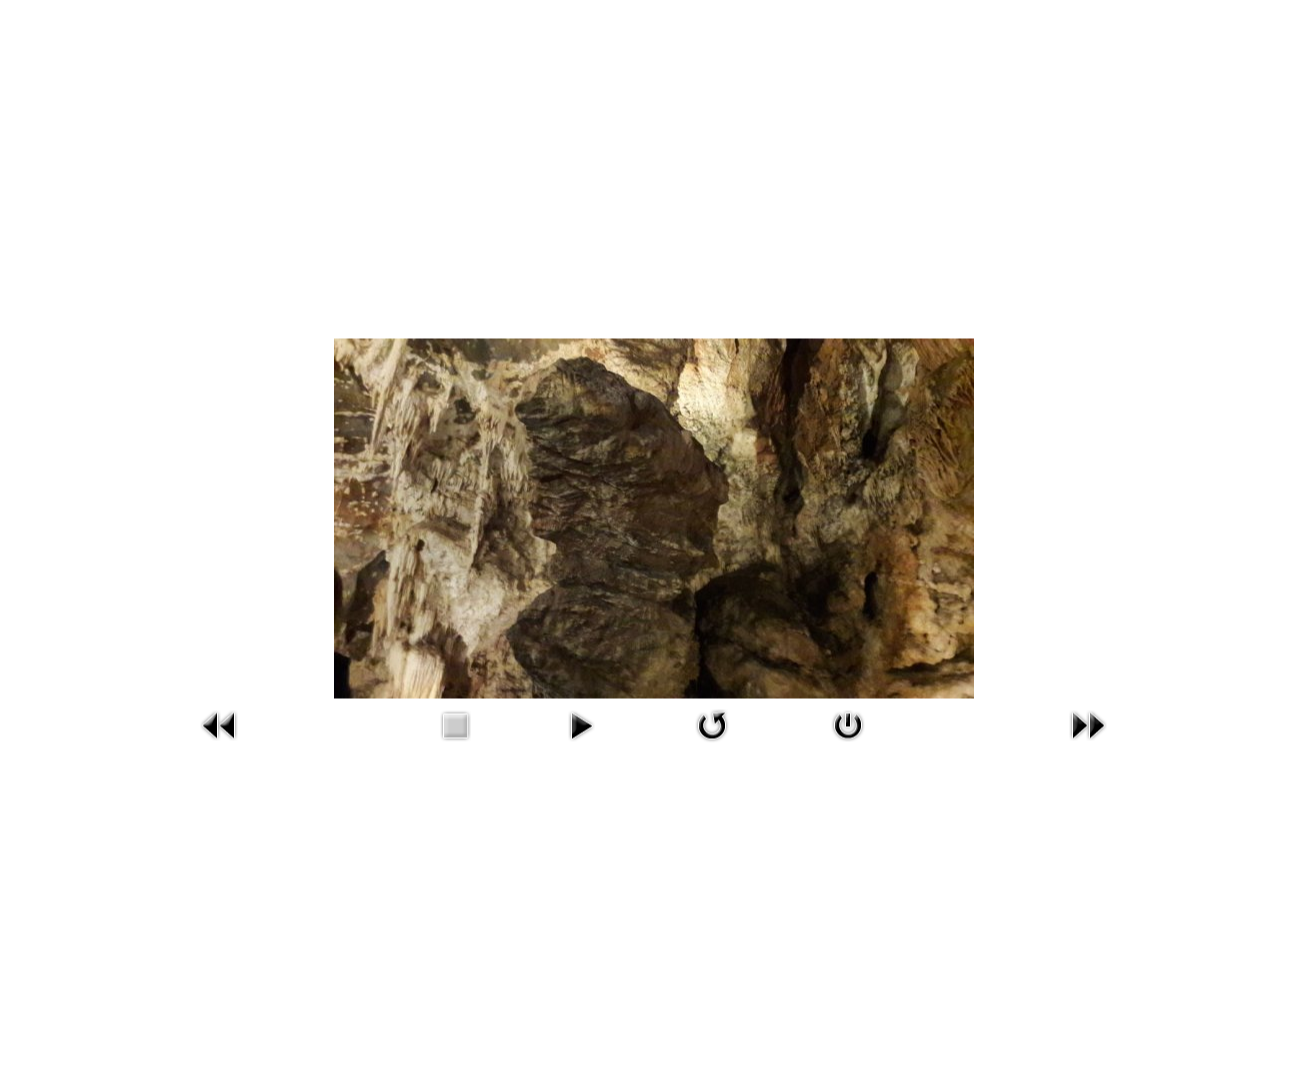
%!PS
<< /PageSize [1308 1077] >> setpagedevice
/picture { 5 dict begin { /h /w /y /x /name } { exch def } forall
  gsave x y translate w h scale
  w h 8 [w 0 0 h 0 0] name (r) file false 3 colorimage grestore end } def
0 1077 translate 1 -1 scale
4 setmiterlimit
1 setgray
0 0 1308 1077 rectfill
(img1.rgb) 334 338 640 361 picture
(img2.rgb) 200 710 38 31 picture
(img3.rgb) 440 710 31 32 picture
(img4.rgb) 568 710 27 32 picture
(img5.rgb) 695 709 34 34 picture
(img6.rgb) 831 710 34 32 picture
(img7.rgb) 1069 710 38 31 picture
showpage
